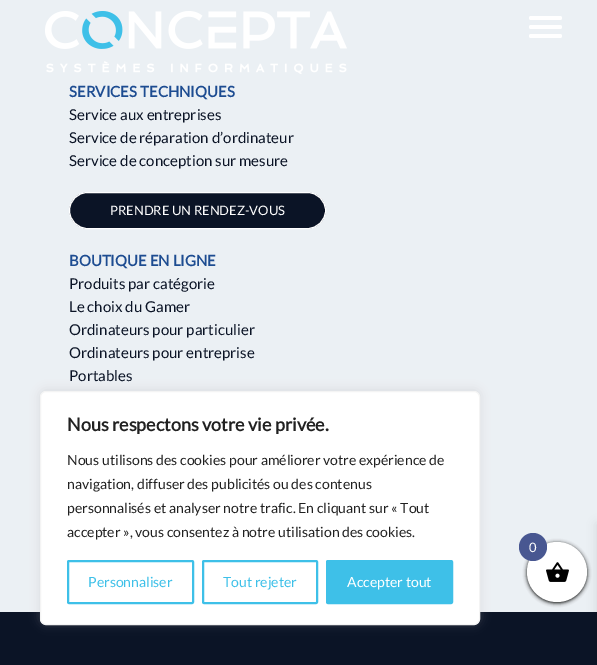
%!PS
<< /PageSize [597 665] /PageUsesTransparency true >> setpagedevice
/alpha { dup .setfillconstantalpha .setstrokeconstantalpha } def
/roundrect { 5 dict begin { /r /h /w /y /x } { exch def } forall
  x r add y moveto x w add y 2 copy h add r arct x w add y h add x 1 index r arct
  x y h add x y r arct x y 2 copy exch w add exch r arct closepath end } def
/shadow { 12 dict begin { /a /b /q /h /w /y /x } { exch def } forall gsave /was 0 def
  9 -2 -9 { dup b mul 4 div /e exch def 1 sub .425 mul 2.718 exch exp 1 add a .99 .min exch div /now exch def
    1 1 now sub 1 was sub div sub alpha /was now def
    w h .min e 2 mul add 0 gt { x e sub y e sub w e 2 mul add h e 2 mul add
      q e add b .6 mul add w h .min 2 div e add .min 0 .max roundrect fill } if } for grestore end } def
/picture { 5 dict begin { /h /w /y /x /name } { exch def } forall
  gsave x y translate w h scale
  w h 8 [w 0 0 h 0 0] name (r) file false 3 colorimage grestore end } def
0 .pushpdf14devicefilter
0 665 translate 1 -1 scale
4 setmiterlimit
0.922 0.941 0.957 setrgbcolor
0 0 597 665 rectfill
(img1.rgb) 45 11 302 63 picture
1 setgray
529 16 33 4 2 roundrect fill
529 25 33 4 2 roundrect fill
529 34 33 4 2 roundrect fill
/Lato-Bold [15 0 0 -15 0 0] selectfont
0.114 0.298 0.569 setrgbcolor
69 97 moveto (SERVICES TECHNIQUES) show
/Lato-Regular [15 0 0 -15 0 0] selectfont
0.043 0.078 0.149 setrgbcolor
69 120 moveto (Service aux entreprises) show
69 143 moveto (Service de réparation d’ordinateur) show
69 166 moveto (Service de conception sur mesure) show
69.5 192.5 256 36 18 roundrect gsave fill grestore
1 setgray
stroke
/Lato-Regular [13 0 0 -13 0 0] selectfont
110 215 moveto (PRENDRE UN RENDEZ-VOUS) show
/Lato-Bold [15 0 0 -15 0 0] selectfont
0.114 0.298 0.569 setrgbcolor
69 266 moveto (BOUTIQUE EN LIGNE) show
/Lato-Regular [15 0 0 -15 0 0] selectfont
0.043 0.078 0.149 setrgbcolor
69 289 moveto (Produits par catégorie) show
69 312 moveto (Le choix du Gamer) show
69 335 moveto (Ordinateurs pour particulier) show
69 358 moveto (Ordinateurs pour entreprise) show
69 381 moveto (Portables) show
0 612 597 53 rectfill
0.675 0.671 0.671 setrgbcolor
40 390 440 234 6 5 0.3 shadow
1 setgray
40.5 391.5 439 233 5.5 roundrect gsave fill grestore
0.957 setgray
stroke
/Lato-Bold [18 0 0 -18 0 0] selectfont
0.129 setgray
67 431 moveto (Nous respectons votre vie privée.) show
/Lato-Regular [14 0 0 -14 0 0] selectfont
67 465 moveto (Nous utilisons des cookies pour améliorer votre expérience de) show
67 489 moveto (navigation, diffuser des publicités ou des contenus) show
67 513 moveto (personnalisés et analyser notre trafic. En cliquant sur « Tout) show
67 537 moveto (accepter », vous consentez à notre utilisation des cookies.) show
0.243 0.753 0.91 setrgbcolor
2 setlinewidth
68 561 125 42 1 roundrect stroke
88 587 moveto (Personnaliser) show
203 561 114 42 1 roundrect stroke
223 587 moveto (Tout rejeter) show
327 561 125 42 1 roundrect gsave fill grestore
stroke
1 setgray
347 587 moveto (Accepter tout) show
0 setgray
527 543 60 60 30 2 1 shadow
597 524 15 136 0 5 0.1 shadow
1 setgray
newpath 557 572 30 0 360 arc closepath fill
0.282 0.341 0.569 setrgbcolor
newpath 533 547 14 0 360 arc closepath fill
/Lato-Regular [13 0 0 -13 0 0] selectfont
1 setgray
529 552 moveto (0) show
(img2.rgb) 546 562 23 20 picture
.poppdf14devicefilter showpage
